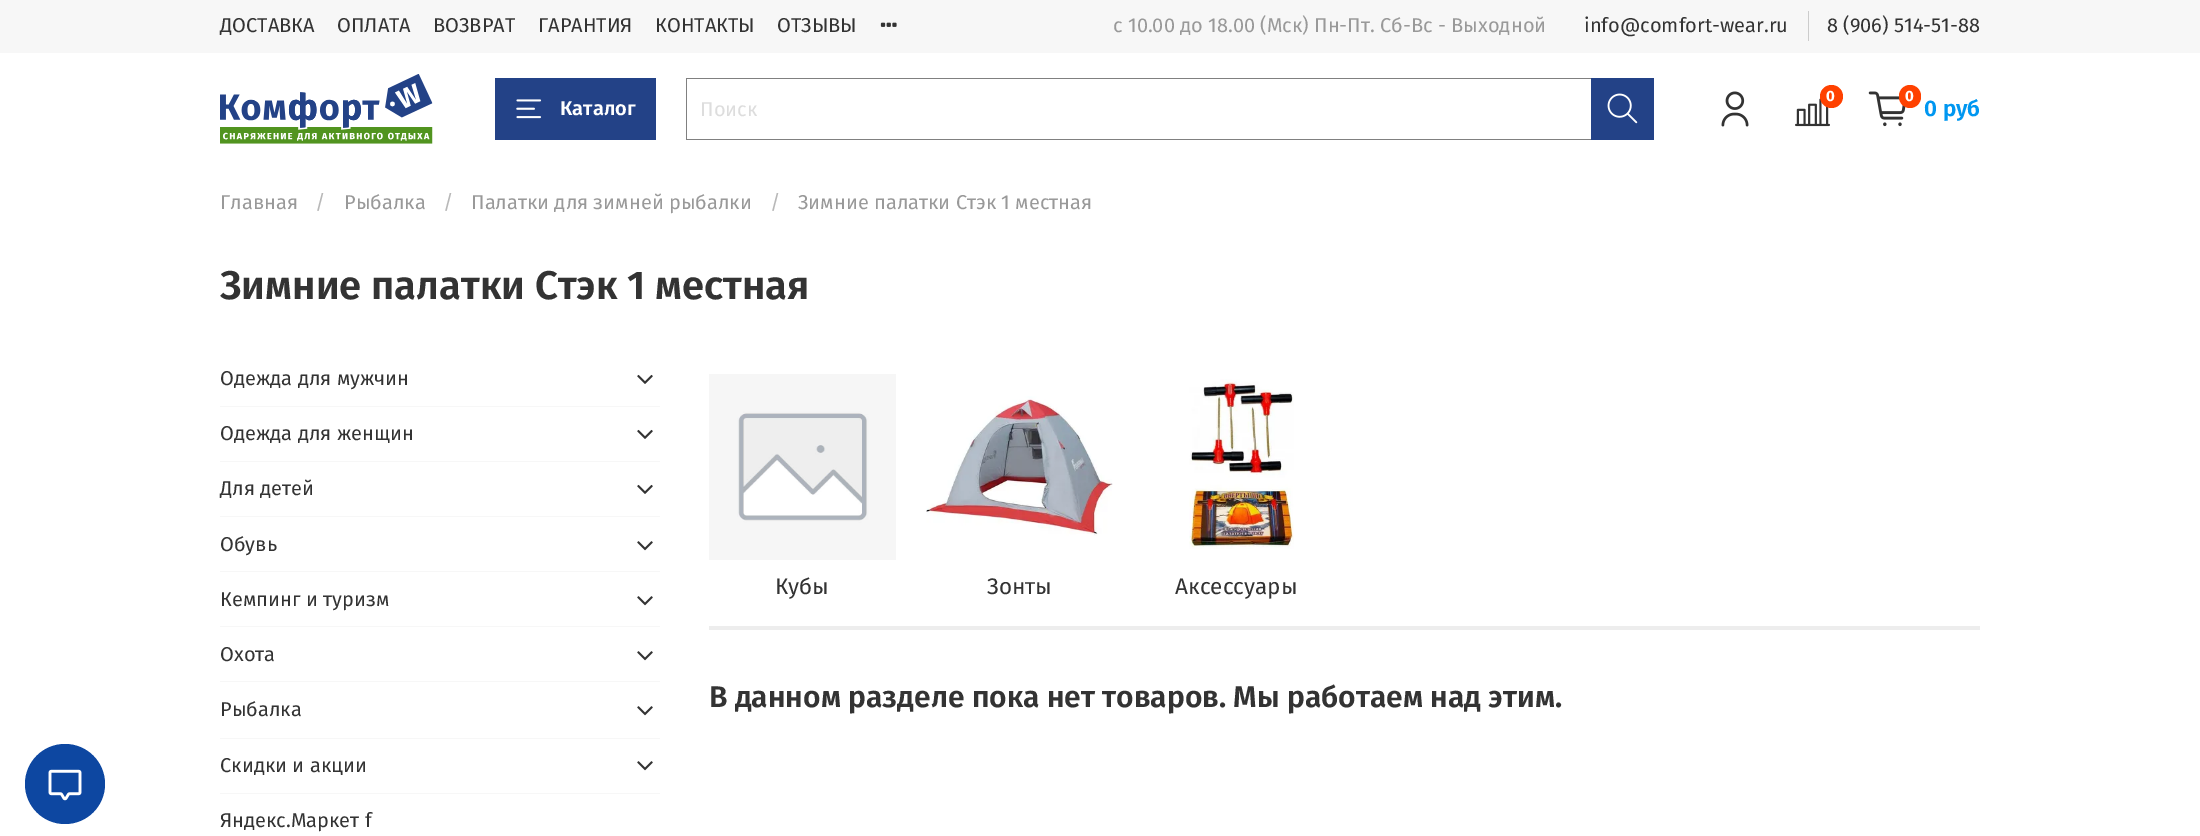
%!PS
<< /PageSize [2200 836] >> setpagedevice
/roundrect { 5 dict begin { /r /h /w /y /x } { exch def } forall
  x r add y moveto x w add y 2 copy h add r arct x w add y h add x 1 index r arct
  x y h add x y r arct x y 2 copy exch w add exch r arct closepath end } def
/picture { 5 dict begin { /h /w /y /x /name } { exch def } forall
  gsave x y translate w h scale
  w h 8 [w 0 0 h 0 0] name (r) file false 3 colorimage grestore end } def
0 836 translate 1 -1 scale
4 setmiterlimit
1 setgray
0 0 2200 836 rectfill
0.051 0.278 0.631 setrgbcolor
newpath 65 784 40 0 360 arc closepath fill
(img1.rgb) 48 769 34 32 picture
0.969 setgray
0 0 2200 53 rectfill
/FiraSans-Regular [20 0 0 -20 0 0] selectfont
0.2 setgray
220 32 moveto (ДОСТАВКА) show
337 32 moveto (ОПЛАТА) show
433 32 moveto (ВОЗВРАТ) show
538 32 moveto (ГАРАНТИЯ) show
655 32 moveto (КОНТАКТЫ) show
777 32 moveto (ОТЗЫВЫ) show
(img2.rgb) 880 22 17 5 picture
0.6 setgray
1113 32 moveto (с 10.00 до 18.00 \(Мск\) Пн-Пт. Cб-Вс - Выходной) show
0.8 setgray
1808 11 1 30 rectfill
0.2 setgray
1584 32 moveto (info@comfort-wear.ru) show
1827 32 moveto (8 \(906\) 514-51-88) show
(img3.rgb) 220 74 213 70 picture
0.137 0.259 0.529 setrgbcolor
495 78 161 62 rectfill
(img4.rgb) 516 99 26 20 picture
/FiraSans-SemiBold [20 0 0 -20 0 0] selectfont
1 setgray
560 115 moveto (Каталог) show
0.502 setgray
686 78 905 1 rectfill
686 139 905 1 rectfill
686 78 1 62 rectfill
/FiraSans-Regular [20 0 0 -20 0 0] selectfont
0.867 setgray
700 116 moveto (Поиск) show
0.137 0.259 0.529 setrgbcolor
1591 78 63 62 rectfill
(img5.rgb) 1607 93 31 31 picture
(img6.rgb) 1721 91 28 36 picture
(img7.rgb) 1795 98 35 29 picture
1 0.255 0 setrgbcolor
newpath 1831.5 96.5 11.5 0 360 arc closepath fill
/FiraSans-Bold [15 0 0 -15 0 0] selectfont
1 setgray
1826 101 moveto (0) show
(img8.rgb) 1868 91 38 36 picture
1 0.255 0 setrgbcolor
1899 85 22 23 11 roundrect fill
1 setgray
1905 101 moveto (0) show
/FiraSans-SemiBold [22.5 0 0 -22.5 0 0] selectfont
0 0.592 0.945 setrgbcolor
1924 116 moveto (0 руб) show
/FiraSans-Regular [20 0 0 -20 0 0] selectfont
0.6 setgray
220 209 moveto (Главная) show
0.722 setgray
315 209 moveto (/) show
0.6 setgray
344 209 moveto (Рыбалка) show
0.722 setgray
443 209 moveto (/) show
0.6 setgray
471 209 moveto (Палатки для зимней рыбалки) show
0.722 setgray
770 209 moveto (/) show
0.6 setgray
798 209 moveto (Зимние палатки Стэк 1 местная) show
/FiraSans-SemiBold [40 0 0 -40 0 0] selectfont
0.2 setgray
220 299 moveto (Зимние палатки Стэк 1 местная) show
0.969 setgray
220 406 440 1 rectfill
/FiraSans-Regular [20 0 0 -20 0 0] selectfont
0.2 setgray
220 385 moveto (Одежда для мужчин) show
(img9.rgb) 637 374 16 10 picture
0.969 setgray
220 461 440 1 rectfill
0.2 setgray
220 440 moveto (Одежда для женщин) show
(img9.rgb) 637 429 16 10 picture
0.969 setgray
220 516 440 1 rectfill
0.2 setgray
220 495 moveto (Для детей) show
(img9.rgb) 637 484 16 10 picture
0.969 setgray
220 571 440 1 rectfill
0.2 setgray
220 551 moveto (Обувь) show
(img10.rgb) 637 541 16 10 picture
0.969 setgray
220 626 440 1 rectfill
0.2 setgray
220 606 moveto (Кемпинг и туризм) show
(img10.rgb) 637 596 16 10 picture
0.969 setgray
220 681 440 1 rectfill
0.2 setgray
220 661 moveto (Охота) show
(img10.rgb) 637 651 16 10 picture
0.969 setgray
220 738 440 1 rectfill
0.2 setgray
220 716 moveto (Рыбалка) show
(img10.rgb) 637 706 16 10 picture
0.969 setgray
220 793 440 1 rectfill
0.2 setgray
220 772 moveto (Скидки и акции) show
(img10.rgb) 637 761 16 10 picture
220 827 moveto (Яндекс.Маркет f) show
(img11.rgb) 709 374 187 186 picture
/FiraSans-Regular [22.5 0 0 -22.5 0 0] selectfont
775 594 moveto (Кубы) show
(img12.rgb) 926 396 187 140 picture
987 594 moveto (Зонты) show
(img13.rgb) 1189 379 105 170 picture
1175 594 moveto (Аксессуары) show
0.929 setgray
709 626 1271 4 rectfill
/FiraSans-SemiBold [30 0 0 -30 0 0] selectfont
0.2 setgray
709 707 moveto (В данном разделе пока нет товаров. Мы работаем над этим.) show
showpage
